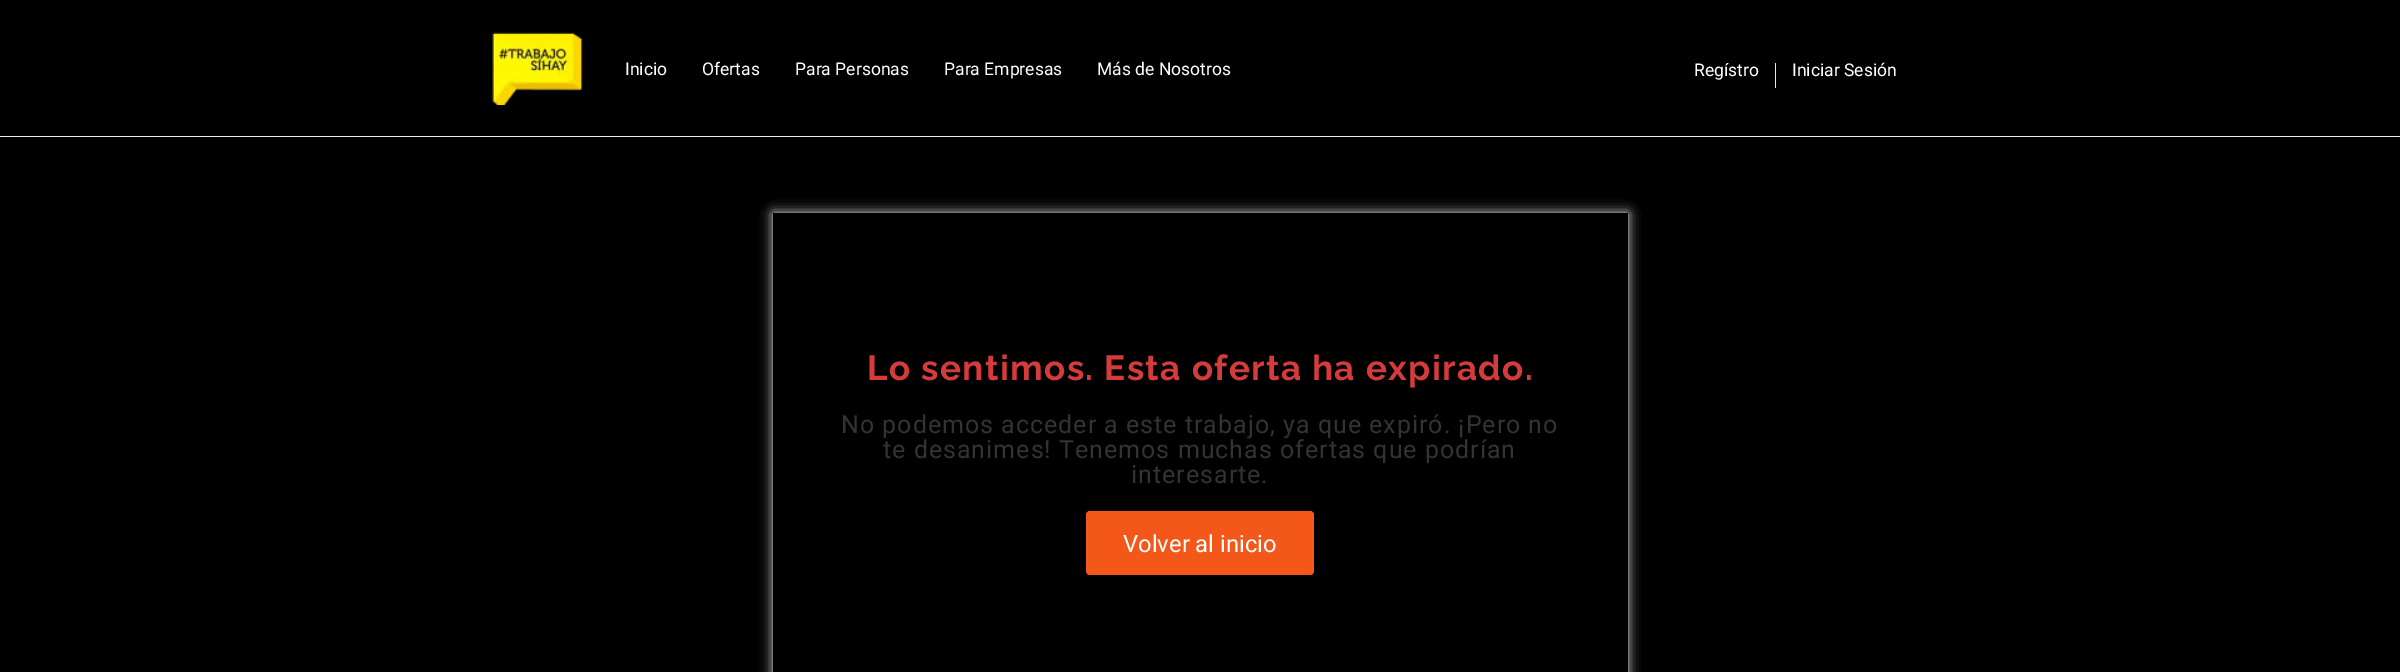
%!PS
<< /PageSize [2400 672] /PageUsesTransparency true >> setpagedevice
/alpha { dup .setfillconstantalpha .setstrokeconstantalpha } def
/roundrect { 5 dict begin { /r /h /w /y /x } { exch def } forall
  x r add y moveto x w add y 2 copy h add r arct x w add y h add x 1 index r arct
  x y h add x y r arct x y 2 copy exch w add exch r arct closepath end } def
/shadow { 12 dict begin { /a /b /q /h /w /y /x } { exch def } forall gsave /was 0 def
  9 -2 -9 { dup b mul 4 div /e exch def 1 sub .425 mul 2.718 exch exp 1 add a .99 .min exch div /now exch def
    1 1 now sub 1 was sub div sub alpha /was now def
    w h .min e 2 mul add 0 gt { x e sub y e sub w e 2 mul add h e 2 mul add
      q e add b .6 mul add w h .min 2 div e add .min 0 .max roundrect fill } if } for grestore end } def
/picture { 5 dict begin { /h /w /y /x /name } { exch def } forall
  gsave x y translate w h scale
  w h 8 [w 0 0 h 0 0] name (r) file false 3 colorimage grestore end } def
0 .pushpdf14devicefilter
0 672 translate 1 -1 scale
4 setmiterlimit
0 setgray
0 0 2400 672 rectfill
0.933 setgray
0 136 2400 1 rectfill
(img1.rgb) 492 32 91 73 picture
/Roboto-Regular [17.5 0 0 -17.5 0 0] selectfont
1 setgray
625 75 moveto (Inicio) show
702 75 moveto (Ofertas) show
795 75 moveto (Para Personas) show
944 75 moveto (Para Empresas) show
1097 75 moveto (Más de Nosotros) show
1694 76 moveto (Regístro) show
0.898 setgray
1775 63 1 25 rectfill
1 setgray
1792 76 moveto (Iniciar Sesión) show
gsave
newpath 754 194 moveto 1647 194 lineto 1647 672 lineto 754 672 lineto closepath 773 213 moveto 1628 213 lineto 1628 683 lineto 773 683 lineto closepath eoclip newpath
0.933 setgray
773 213 855 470 0 6 1 shadow
grestore
/Raleway-Bold [35 0 0 -35 0 0] selectfont
0.839 0.231 0.235 setrgbcolor
867 380 moveto 1.4 0 (Lo sentimos. Esta oferta ha expirado.) ashow
/Roboto-Regular [25 0 0 -25 0 0] selectfont
0.2 setgray
841 433 moveto 1 0 (No podemos acceder a este trabajo, ya que expiró. ¡Pero no) ashow
883 458 moveto 1 0 (te desanimes! Tenemos muchas ofertas que podrían) ashow
1131 483 moveto 1 0 (interesarte.) ashow
0.953 0.345 0.102 setrgbcolor
1086 511 228 64 4 roundrect fill
/Roboto-Regular [23.75 0 0 -23.75 0 0] selectfont
1 setgray
1123 552 moveto (Volver al inicio) show
.poppdf14devicefilter showpage
